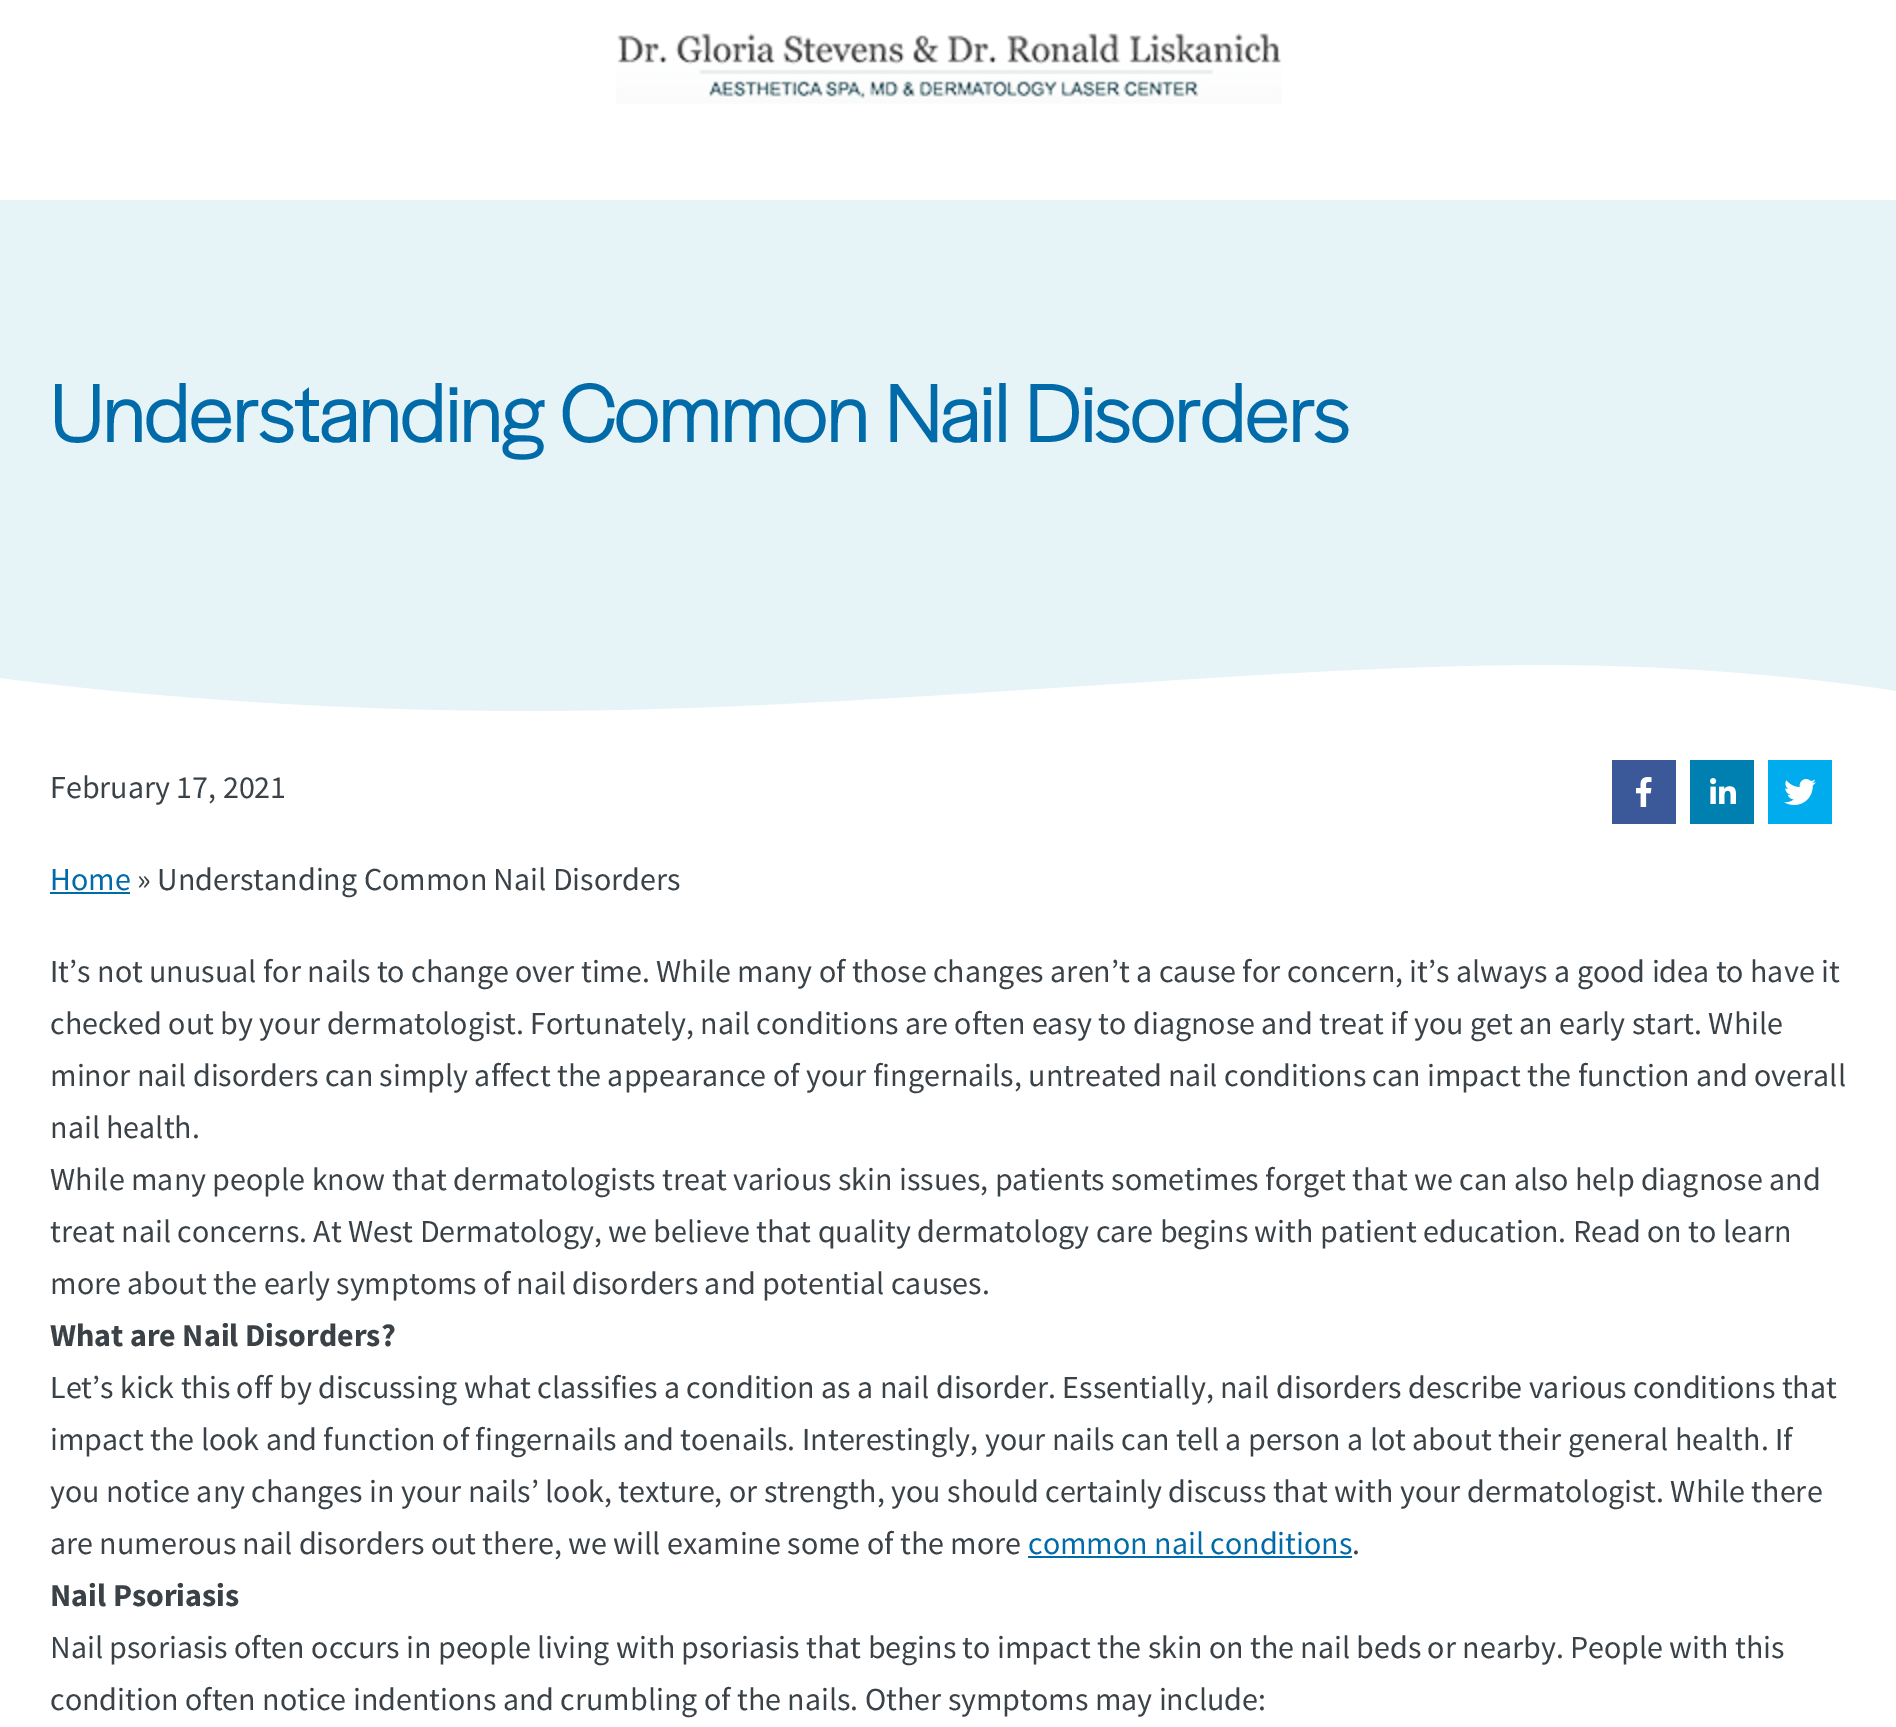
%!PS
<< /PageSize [1896 1727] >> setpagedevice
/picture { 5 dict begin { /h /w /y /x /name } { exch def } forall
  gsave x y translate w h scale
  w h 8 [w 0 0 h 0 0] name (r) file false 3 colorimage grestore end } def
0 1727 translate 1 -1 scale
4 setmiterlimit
1 setgray
0 0 1896 1727 rectfill
(img1.rgb) 616 33 666 71 picture
0.902 0.953 0.969 setrgbcolor
0 200 1896 511 rectfill
(img2.rgb) 0 665 1896 75 picture
/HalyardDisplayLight-Bold [84 0 0 -84 0 0] selectfont
0.004 0.42 0.663 setrgbcolor
50 442 moveto (Understanding Common Nail Disorders) show
/SourceSansPro-Regular [32 0 0 -32 0 0] selectfont
0.227 0.259 0.282 setrgbcolor
50 798 moveto (February 17, 2021) show
0.231 0.349 0.596 setrgbcolor
1612 760 64 64 rectfill
(img3.rgb) 1636 777 16 30 picture
0 0.498 0.694 setrgbcolor
1690 760 64 64 rectfill
(img4.rgb) 1710 778 26 26 picture
0 0.675 0.929 setrgbcolor
1768 760 64 64 rectfill
(img5.rgb) 1784 779 32 26 picture
0.004 0.42 0.663 setrgbcolor
50 890 moveto (Home) show
50 892 80 2 rectfill
0.227 0.259 0.282 setrgbcolor
137 890 moveto (» Understanding Common Nail Disorders) show
50 982 moveto (It’s not unusual for nails to change over time. While many of those changes aren’t a cause for concern, it’s always a good idea to have it) show
50 1034 moveto (checked out by your dermatologist. Fortunately, nail conditions are often easy to diagnose and treat if you get an early start. While) show
50 1086 moveto (minor nail disorders can simply affect the appearance of your fingernails, untreated nail conditions can impact the function and overall) show
50 1138 moveto (nail health.) show
50 1190 moveto (While many people know that dermatologists treat various skin issues, patients sometimes forget that we can also help diagnose and) show
50 1242 moveto (treat nail concerns. At West Dermatology, we believe that quality dermatology care begins with patient education. Read on to learn) show
50 1294 moveto (more about the early symptoms of nail disorders and potential causes.) show
/SourceSansPro-Bold [32 0 0 -32 0 0] selectfont
50 1346 moveto (What are Nail Disorders?) show
/SourceSansPro-Regular [32 0 0 -32 0 0] selectfont
50 1398 moveto (Let’s kick this off by discussing what classifies a condition as a nail disorder. Essentially, nail disorders describe various conditions that) show
50 1450 moveto (impact the look and function of fingernails and toenails. Interestingly, your nails can tell a person a lot about their general health. If) show
50 1502 moveto (you notice any changes in your nails’ look, texture, or strength, you should certainly discuss that with your dermatologist. While there) show
50 1554 moveto (are numerous nail disorders out there, we will examine some of the more) show
0.004 0.42 0.663 setrgbcolor
1028 1554 moveto (common nail conditions) show
1028 1556 324 2 rectfill
0.227 0.259 0.282 setrgbcolor
1352 1554 moveto (.) show
/SourceSansPro-Bold [32 0 0 -32 0 0] selectfont
50 1606 moveto (Nail Psoriasis) show
/SourceSansPro-Regular [32 0 0 -32 0 0] selectfont
50 1658 moveto (Nail psoriasis often occurs in people living with psoriasis that begins to impact the skin on the nail beds or nearby. People with this) show
50 1710 moveto (condition often notice indentions and crumbling of the nails. Other symptoms may include:) show
showpage
